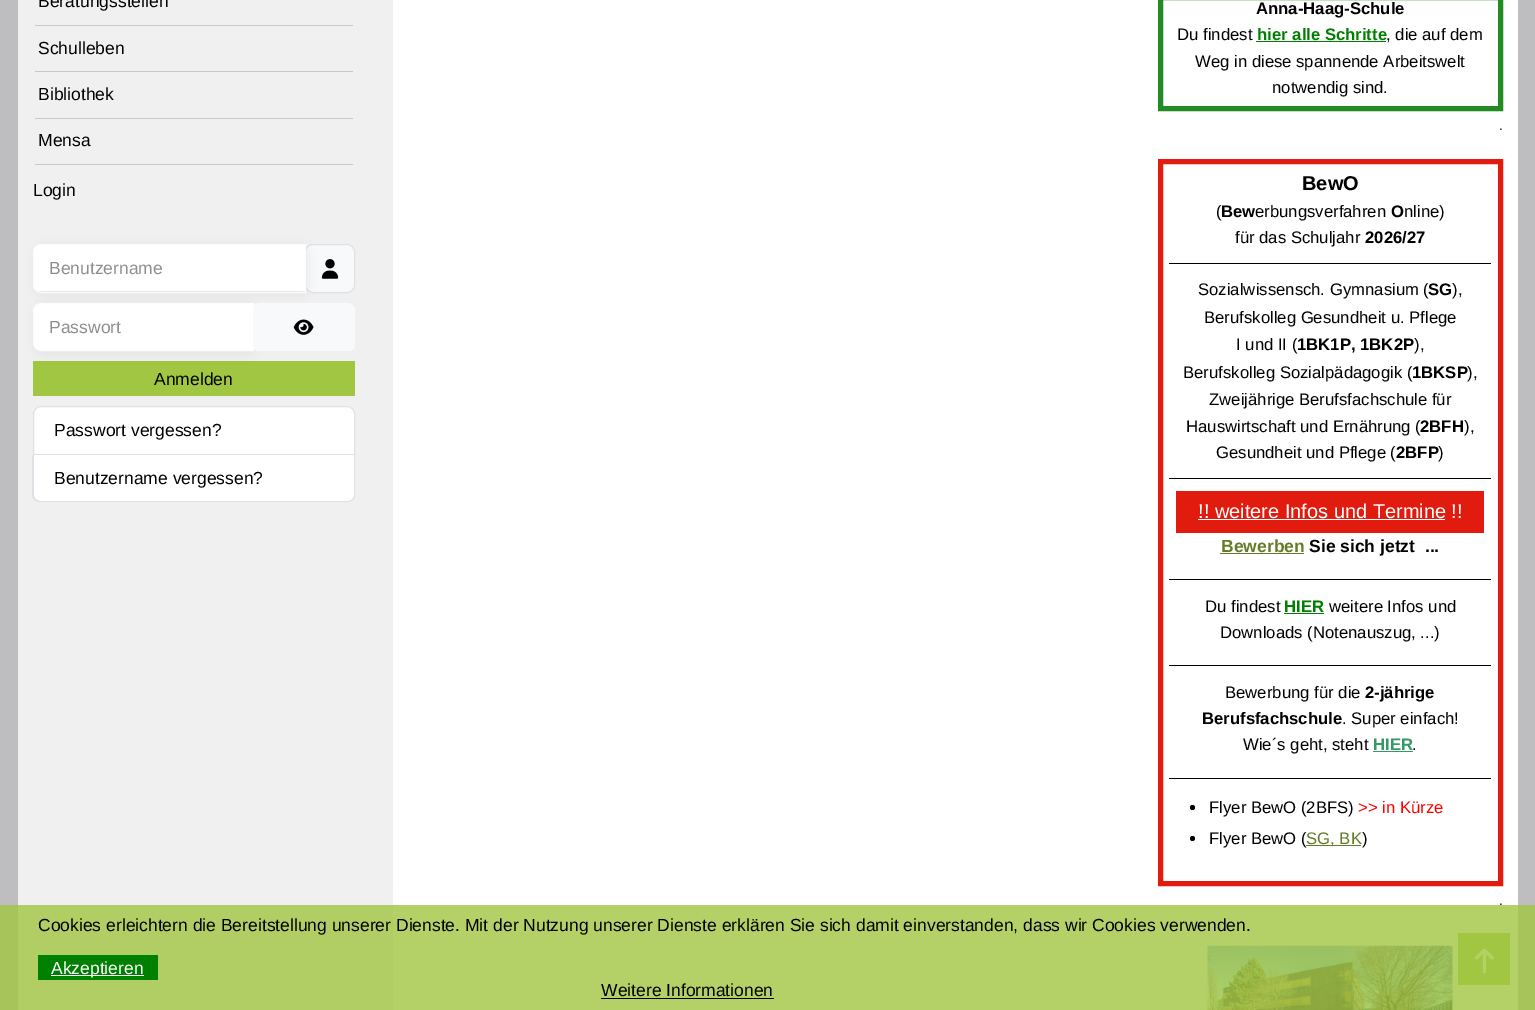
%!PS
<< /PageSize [1535 1010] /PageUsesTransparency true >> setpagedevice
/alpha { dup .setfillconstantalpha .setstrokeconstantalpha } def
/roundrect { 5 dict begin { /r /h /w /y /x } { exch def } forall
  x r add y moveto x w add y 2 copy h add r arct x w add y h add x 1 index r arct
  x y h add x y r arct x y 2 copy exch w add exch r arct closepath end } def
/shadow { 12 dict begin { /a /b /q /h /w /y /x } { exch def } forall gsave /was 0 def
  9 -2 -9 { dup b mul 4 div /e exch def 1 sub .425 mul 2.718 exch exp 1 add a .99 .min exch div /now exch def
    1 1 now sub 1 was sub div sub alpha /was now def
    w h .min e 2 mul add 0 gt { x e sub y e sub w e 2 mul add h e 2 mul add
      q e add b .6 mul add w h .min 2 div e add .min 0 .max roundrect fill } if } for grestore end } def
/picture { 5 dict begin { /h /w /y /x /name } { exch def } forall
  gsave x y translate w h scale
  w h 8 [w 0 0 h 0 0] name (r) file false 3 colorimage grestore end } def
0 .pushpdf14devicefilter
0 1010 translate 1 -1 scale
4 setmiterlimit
0.745 0.745 0.753 setrgbcolor
0 0 1535 1010 rectfill
0.655 0.769 0.353 setrgbcolor
0 905 1535 105 rectfill
1 setgray
393 0 1125 905 rectfill
0.706 0.82 0.404 setrgbcolor
393 905 1125 105 rectfill
0.941 setgray
18 0 375 905 rectfill
0.694 0.808 0.392 setrgbcolor
18 905 375 105 rectfill
0.784 setgray
35 25 318 1 rectfill
/LiberationSans-Regular [17.5 0 0 -17.5 0 0] selectfont
0 setgray
38 7 moveto (Beratungsstellen) show
0.784 setgray
35 71 318 1 rectfill
0 setgray
38 54 moveto (Schulleben) show
0.784 setgray
35 118 318 1 rectfill
0 setgray
38 100 moveto (Bibliothek) show
0.784 setgray
35 164 318 1 rectfill
0 setgray
38 146 moveto (Mensa) show
33 196 moveto (Login) show
0.973 0.976 0.98 setrgbcolor
305.5 244.5 49 48 7.5 roundrect gsave fill grestore
0.871 0.886 0.902 setrgbcolor
stroke
(img1.rgb) 321 259 18 20 picture
0 setgray
35 246 274 49 8 5.5 0.06 shadow
1 setgray
newpath 40 245 moveto 305 245 lineto 305 291 lineto 40 291 lineto 36.5 291 34 288.5 34 285 curveto 34 251 lineto 34 247.5 36.5 245 40 245 curveto closepath fill
0.992 setgray
newpath 41 244.5 moveto 305.5 244.5 lineto 305.5 292.5 lineto 41 292.5 lineto 37 292.5 33.5 289 33.5 285 curveto 33.5 252 lineto 33.5 248 37 244.5 41 244.5 curveto closepath stroke
0.557 setgray
49 274 moveto (Benutzername) show
0.631 0.776 0.255 setrgbcolor
33 361 322 35 rectfill
0 setgray
35 305 221 49 8 5.5 0.06 shadow
1 setgray
newpath 40 304 moveto 253 304 lineto 253 350 lineto 40 350 lineto 36.5 350 34 347.5 34 344 curveto 34 310 lineto 34 306.5 36.5 304 40 304 curveto closepath fill
0.992 setgray
newpath 41 303.5 moveto 253.5 303.5 lineto 253.5 350.5 lineto 41 350.5 lineto 37 350.5 33.5 347 33.5 343 curveto 33.5 311 lineto 33.5 307 37 303.5 41 303.5 curveto closepath stroke
0.557 setgray
49 333 moveto (Passwort) show
0.973 0.976 0.98 setrgbcolor
newpath 259 303 moveto 347 303 lineto 351.5 303 355 306.5 355 311 curveto 355 345 lineto 355 348.5 352.5 351 349 351 curveto 259 351 lineto 255.5 351 253 348.5 253 345 curveto 253 309 lineto 253 305.5 255.5 303 259 303 curveto closepath fill
(img2.rgb) 293 319 21 16 picture
0 setgray
154 385 moveto (Anmelden) show
1 setgray
newpath 41 406.5 moveto 347 406.5 lineto 351 406.5 354.5 410 354.5 414 curveto 354.5 454.5 lineto 33.5 454.5 lineto 33.5 414 lineto 33.5 410 37 406.5 41 406.5 curveto closepath gsave fill grestore
0.871 0.886 0.902 setrgbcolor
stroke
0 setgray
54 436 moveto (Passwort vergessen?) show
1 setgray
newpath 34 455 moveto 354 455 lineto 354 495 lineto 354 498.5 351.5 501 348 501 curveto 40 501 lineto 36.5 501 34 498.5 34 495 curveto closepath fill
0.871 0.886 0.902 setrgbcolor
newpath 32 455 moveto 355 455 lineto 355 495 lineto 355 499 352 502 348 502 curveto 40 502 lineto 36 502 32 499 32 495 curveto closepath 34 455 moveto 354 455 lineto 354 495 lineto 354 498 351 501 348 501 curveto 40 501 lineto 37 501 34 498 34 495 curveto closepath eofill
0 setgray
54 484 moveto (Benutzername vergessen?) show
0.133 0.545 0.133 setrgbcolor
5 setlinewidth
1160.5 -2.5 340 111 rectstroke
/LiberationSans-Bold [16.7 0 0 -16.7 0 0] selectfont
0 setgray
1256 14 moveto (Anna-Haag-Schule) show
/LiberationSans-Regular [16.7 0 0 -16.7 0 0] selectfont
1177 40 moveto (Du findest) show
/LiberationSans-Bold [16.7 0 0 -16.7 0 0] selectfont
0 0.502 0 setrgbcolor
1257 40 moveto (hier alle Schritte) show
1256 41 130 1 rectfill
/LiberationSans-Regular [16.7 0 0 -16.7 0 0] selectfont
0 setgray
1386 40 moveto (, die auf dem) show
1195 67 moveto (Weg in diese spannende Arbeitswelt) show
1272 93 moveto (notwendig sind.) show
/LiberationSans-Regular [13 0 0 -13 0 0] selectfont
1499 130 moveto (.) show
0.882 0.11 0.055 setrgbcolor
1160.5 161.5 340 722 rectstroke
/LiberationSans-Bold [20 0 0 -20 0 0] selectfont
0 setgray
1302 190 moveto (BewO) show
/LiberationSans-Regular [16.7 0 0 -16.7 0 0] selectfont
1216 217 moveto (\() show
/LiberationSans-Bold [16.7 0 0 -16.7 0 0] selectfont
1221 217 moveto (Bew) show
/LiberationSans-Regular [16.7 0 0 -16.7 0 0] selectfont
1255 217 moveto (erbungsverfahren) show
/LiberationSans-Bold [16.7 0 0 -16.7 0 0] selectfont
1391 217 moveto (O) show
/LiberationSans-Regular [16.7 0 0 -16.7 0 0] selectfont
1404 217 moveto (nline\)) show
1235 243 moveto (für das Schuljahr) show
/LiberationSans-Bold [16.7 0 0 -16.7 0 0] selectfont
1365 243 moveto (2026/27) show
1169 263 322 1 rectfill
/LiberationSans-Regular [16.7 0 0 -16.7 0 0] selectfont
1198 295 moveto (Sozialwissensch. Gymnasium \() show
/LiberationSans-Bold [16.7 0 0 -16.7 0 0] selectfont
1428 295 moveto (SG) show
/LiberationSans-Regular [16.7 0 0 -16.7 0 0] selectfont
1452 295 moveto (\),) show
1204 323 moveto (Berufskolleg Gesundheit u. Pflege) show
1236 350 moveto (I und II \() show
/LiberationSans-Bold [16.7 0 0 -16.7 0 0] selectfont
1297 350 moveto (1BK1P, 1BK2P) show
/LiberationSans-Regular [16.7 0 0 -16.7 0 0] selectfont
1414 350 moveto (\),) show
1183 378 moveto (Berufskolleg Sozialpädagogik \() show
/LiberationSans-Bold [16.7 0 0 -16.7 0 0] selectfont
1412 378 moveto (1BKSP) show
/LiberationSans-Regular [16.7 0 0 -16.7 0 0] selectfont
1467 378 moveto (\),) show
1209 405 moveto (Zweijährige Berufsfachschule für) show
1186 432 moveto (Hauswirtschaft und Ernährung \() show
/LiberationSans-Bold [16.7 0 0 -16.7 0 0] selectfont
1420 432 moveto (2BFH) show
/LiberationSans-Regular [16.7 0 0 -16.7 0 0] selectfont
1464 432 moveto (\),) show
1216 458 moveto (Gesundheit und Pflege \() show
/LiberationSans-Bold [16.7 0 0 -16.7 0 0] selectfont
1396 458 moveto (2BFP) show
/LiberationSans-Regular [16.7 0 0 -16.7 0 0] selectfont
1438 458 moveto (\)) show
1169 478 322 1 rectfill
0.882 0.11 0.055 setrgbcolor
1176 491 308 42 rectfill
/LiberationSans-Regular [20 0 0 -20 0 0] selectfont
1 setgray
1198 518 moveto (!! weitere Infos und Termine !!) show
1198 519 247 1 rectfill
/LiberationSans-Bold [17.5 0 0 -17.5 0 0] selectfont
0.392 0.482 0.149 setrgbcolor
1221 552 moveto (Bewerben) show
1220 553 84 1 rectfill
0 setgray
1309 552 moveto (Sie sich jetzt  ...) show
1169 579 322 1 rectfill
/LiberationSans-Regular [16.7 0 0 -16.7 0 0] selectfont
1205 612 moveto (Du findest) show
/LiberationSans-Bold [16.7 0 0 -16.7 0 0] selectfont
0 0.502 0 setrgbcolor
1284 612 moveto (HIER) show
1284 613 40 1 rectfill
/LiberationSans-Regular [16.7 0 0 -16.7 0 0] selectfont
0 setgray
1329 612 moveto (weitere Infos und) show
1220 638 moveto (Downloads \(Notenauszug, ...\)) show
1169 665 322 1 rectfill
1225 698 moveto (Bewerbung für die) show
/LiberationSans-Bold [16.7 0 0 -16.7 0 0] selectfont
1365 698 moveto (2-jährige) show
1202 724 moveto (Berufsfachschule) show
/LiberationSans-Regular [16.7 0 0 -16.7 0 0] selectfont
1342 724 moveto (. Super einfach!) show
1243 750 moveto (Wie´s geht, steht) show
/LiberationSans-Bold [16.7 0 0 -16.7 0 0] selectfont
0.2 0.6 0.4 setrgbcolor
1373 750 moveto (HIER) show
/LiberationSans-Regular [16.7 0 0 -16.7 0 0] selectfont
0 setgray
1412 750 moveto (.) show
0.2 0.6 0.4 setrgbcolor
1373 751 40 1 rectfill
0 setgray
1169 778 322 1 rectfill
newpath 1192.5 807.5 2.5 0 360 arc closepath fill
1209 813 moveto (Flyer BewO \(2BFS\)) show
1 0 0 setrgbcolor
1358 813 moveto (>> in Kürze) show
0 setgray
newpath 1192.5 838.5 2.5 0 360 arc closepath fill
1209 844 moveto (Flyer BewO \() show
0.392 0.482 0.149 setrgbcolor
1306 845 55 1 rectfill
1306 844 moveto (SG, BK) show
0 setgray
1362 844 moveto (\)) show
/LiberationSans-Regular [13 0 0 -13 0 0] selectfont
1499 905 moveto (.) show
(img3.rgb) 1207 945 246 65 picture
/LiberationSans-Regular [17.5 0 0 -17.5 0 0] selectfont
38 931 moveto (Cookies erleichtern die Bereitstellung unserer Dienste. Mit der Nutzung unserer Dienste erklären Sie sich damit einverstanden, dass wir Cookies verwenden.) show
0 0.502 0 setrgbcolor
38 955 120 25 rectfill
1 setgray
51 975 93 1 rectfill
51 974 moveto (Akzeptieren) show
0 setgray
601 996 moveto (Weitere Informationen) show
601 998 173 1 rectfill
0.631 0.776 0.255 setrgbcolor
1458 933 52 52 rectfill
(img4.rgb) 1475 948 19 26 picture
.poppdf14devicefilter showpage
